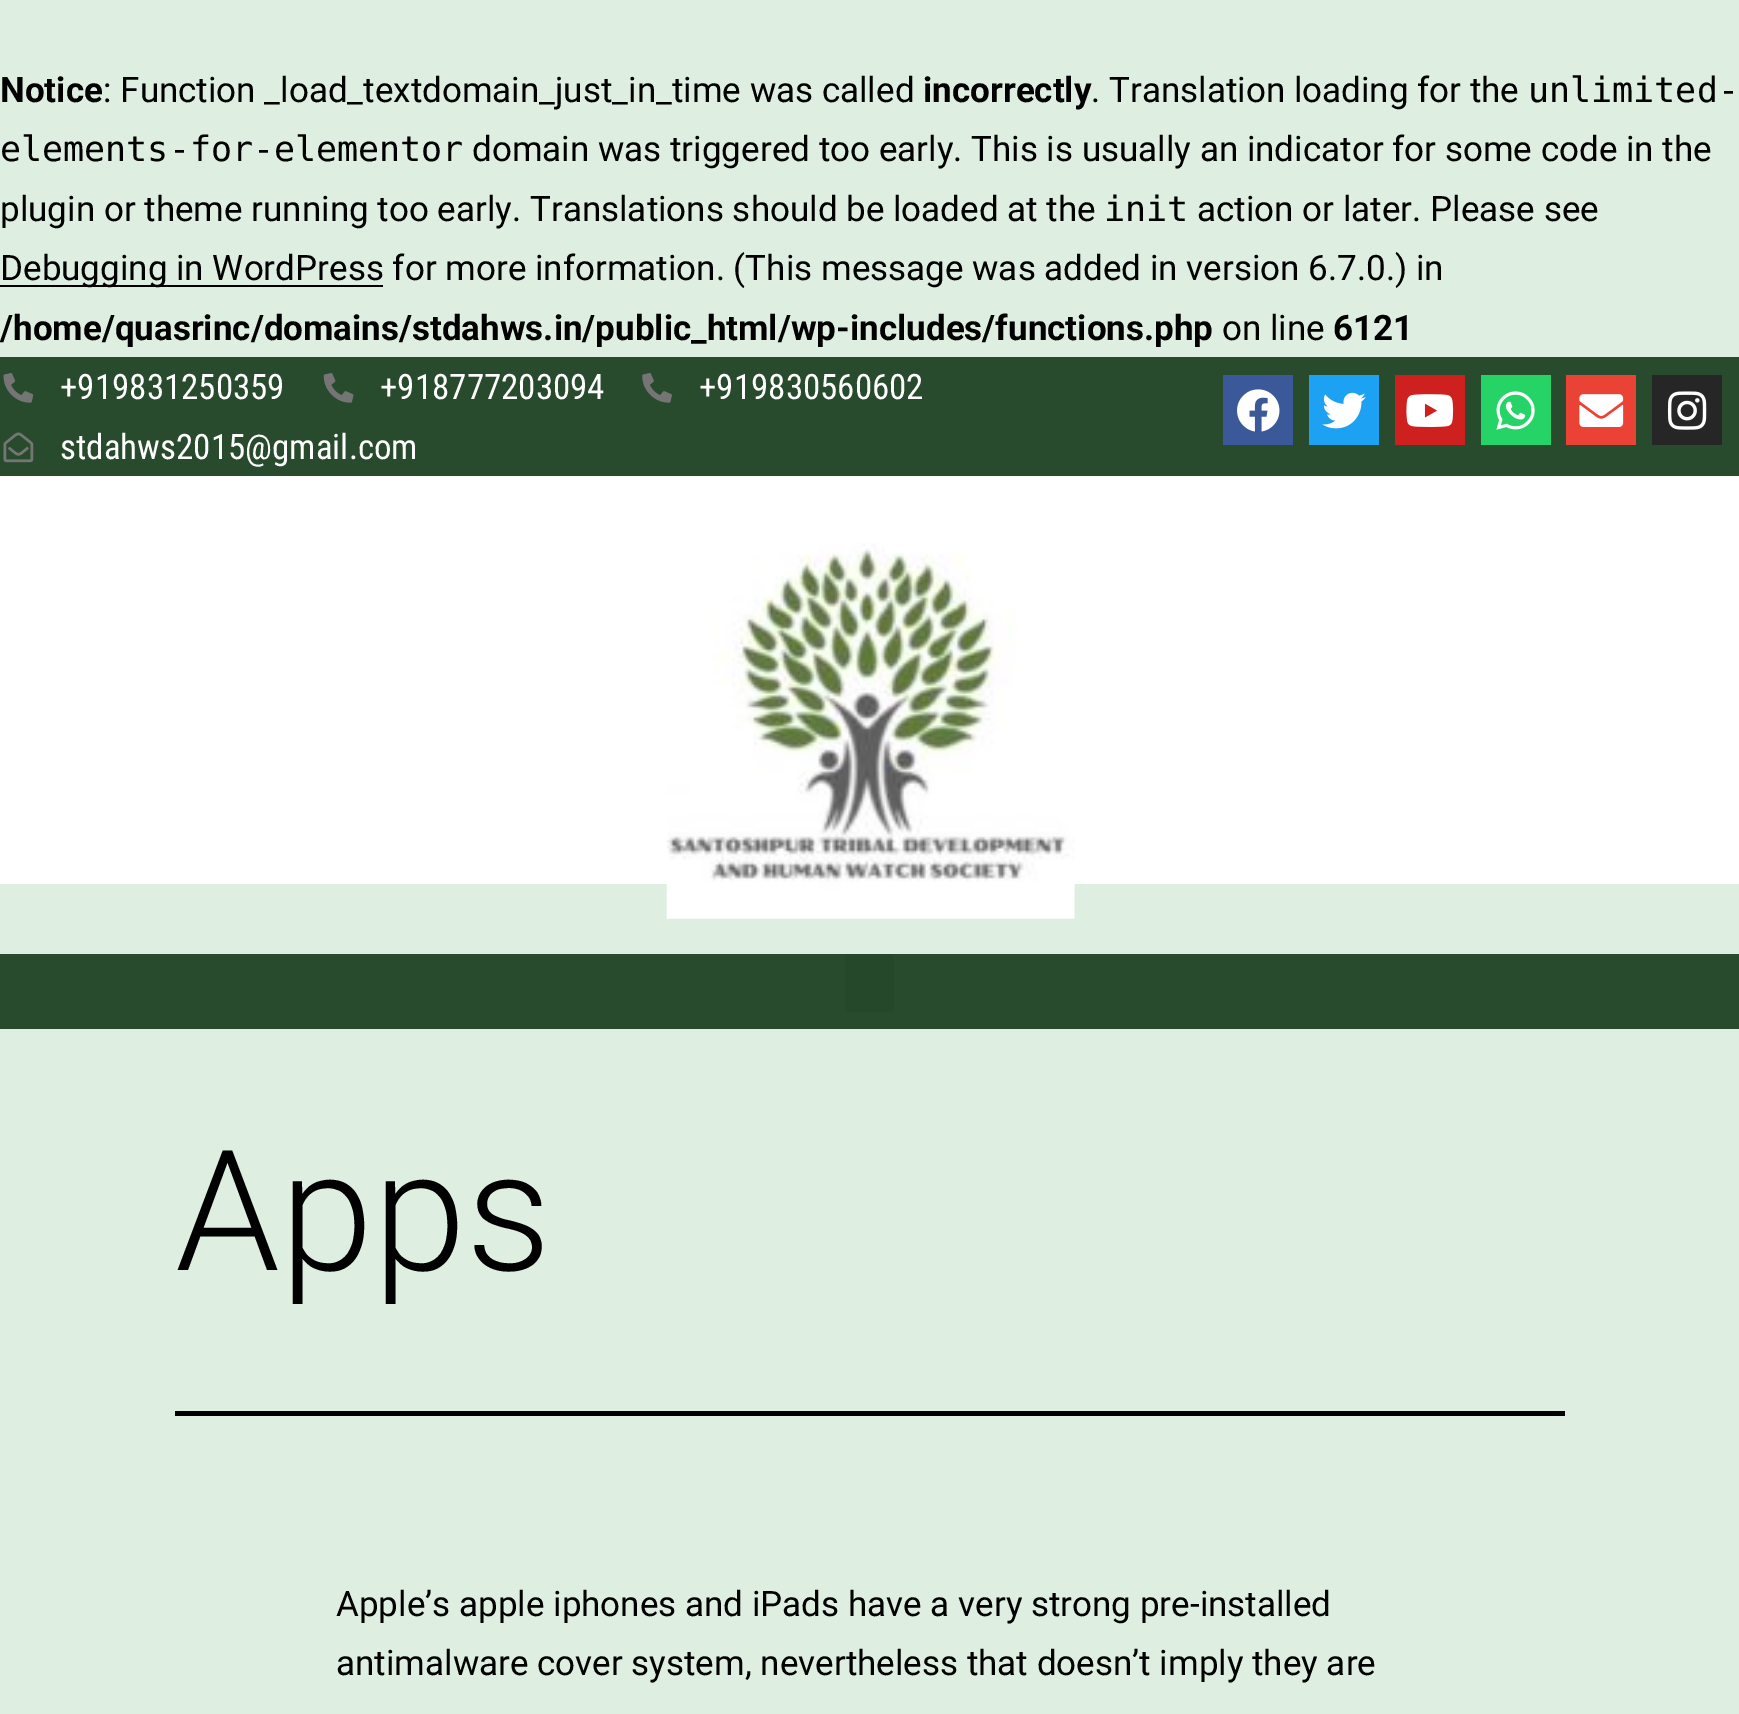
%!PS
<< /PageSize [1739 1714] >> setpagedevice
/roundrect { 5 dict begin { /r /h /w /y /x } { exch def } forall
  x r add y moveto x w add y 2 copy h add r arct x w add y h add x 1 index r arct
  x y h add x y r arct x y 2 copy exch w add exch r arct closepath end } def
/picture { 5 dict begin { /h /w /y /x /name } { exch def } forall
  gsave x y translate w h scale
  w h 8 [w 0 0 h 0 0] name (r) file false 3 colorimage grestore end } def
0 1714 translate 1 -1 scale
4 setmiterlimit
0.871 0.937 0.886 setrgbcolor
0 0 1739 1714 rectfill
/Roboto-Bold [35 0 0 -35 0 0] selectfont
0 setgray
0 102 moveto (Notice) show
/Roboto-Regular [35 0 0 -35 0 0] selectfont
103 102 moveto (: Function _load_textdomain_just_in_time was called) show
/Roboto-Bold [35 0 0 -35 0 0] selectfont
923 102 moveto (incorrectly) show
/Roboto-Regular [35 0 0 -35 0 0] selectfont
1091 102 moveto (. Translation loading for the) show
/DejaVuSansMono-Regular [35 0 0 -35 0 0] selectfont
1528 102 moveto (unlimited-) show
0 161 moveto (elements-for-elementor) show
/Roboto-Regular [35 0 0 -35 0 0] selectfont
472 161 moveto (domain was triggered too early. This is usually an indicator for some code in the) show
0 221 moveto (plugin or theme running too early. Translations should be loaded at the) show
/DejaVuSansMono-Regular [35 0 0 -35 0 0] selectfont
1104 221 moveto (init) show
/Roboto-Regular [35 0 0 -35 0 0] selectfont
1197 221 moveto (action or later. Please see) show
0 285 383 2 rectfill
0 280 moveto (Debugging in WordPress for more information. \(This message was added in version 6.7.0.\) in) show
/Roboto-Bold [35 0 0 -35 0 0] selectfont
0 340 moveto (/home/quasrinc/domains/stdahws.in/public_html/wp-includes/functions.php) show
/Roboto-Regular [35 0 0 -35 0 0] selectfont
1222 340 moveto (on line) show
/Roboto-Bold [35 0 0 -35 0 0] selectfont
1333 340 moveto (6121) show
0.153 0.294 0.173 setrgbcolor
0 357 1739 119 rectfill
(img1.rgb) 3 373 31 30 picture
/RobotoCondensed-Regular [35 0 0 -35 0 0] selectfont
1 setgray
60 399 moveto (+919831250359) show
(img2.rgb) 323 373 31 30 picture
380 399 moveto (+918777203094) show
(img3.rgb) 642 373 30 30 picture
699 399 moveto (+919830560602) show
(img4.rgb) 3 432 31 31 picture
60 459 moveto (stdahws2015@gmail.com) show
0.231 0.349 0.596 setrgbcolor
1223 375 70 70 rectfill
(img5.rgb) 1237 389 43 43 picture
0.114 0.631 0.949 setrgbcolor
1309 375 70 70 rectfill
(img6.rgb) 1322 392 44 37 picture
0.804 0.125 0.122 setrgbcolor
1395 375 70 70 rectfill
(img7.rgb) 1406 394 48 33 picture
0.145 0.827 0.4 setrgbcolor
1481 375 70 70 rectfill
(img8.rgb) 1496 391 39 39 picture
0.918 0.263 0.208 setrgbcolor
1566 375 70 70 rectfill
(img9.rgb) 1579 394 45 33 picture
0.149 setgray
1652 375 70 70 rectfill
(img10.rgb) 1667 391 40 39 picture
1 setgray
0 476 1739 408 rectfill
(img11.rgb) 666 543 409 376 picture
0.153 0.294 0.173 setrgbcolor
0 954 1739 75 rectfill
0.145 0.278 0.165 setrgbcolor
845 954 49 58 5 roundrect fill
0 setgray
175 1411 1390 5 rectfill
/Roboto-Light [168 0 0 -168 0 0] selectfont
175 1270 moveto (Apps) show
/Roboto-Regular [35 0 0 -35 0 0] selectfont
336 1616 moveto (Apple’s apple iphones and iPads have a very strong pre-installed) show
336 1675 moveto (antimalware cover system, nevertheless that doesn’t imply they are) show
showpage
